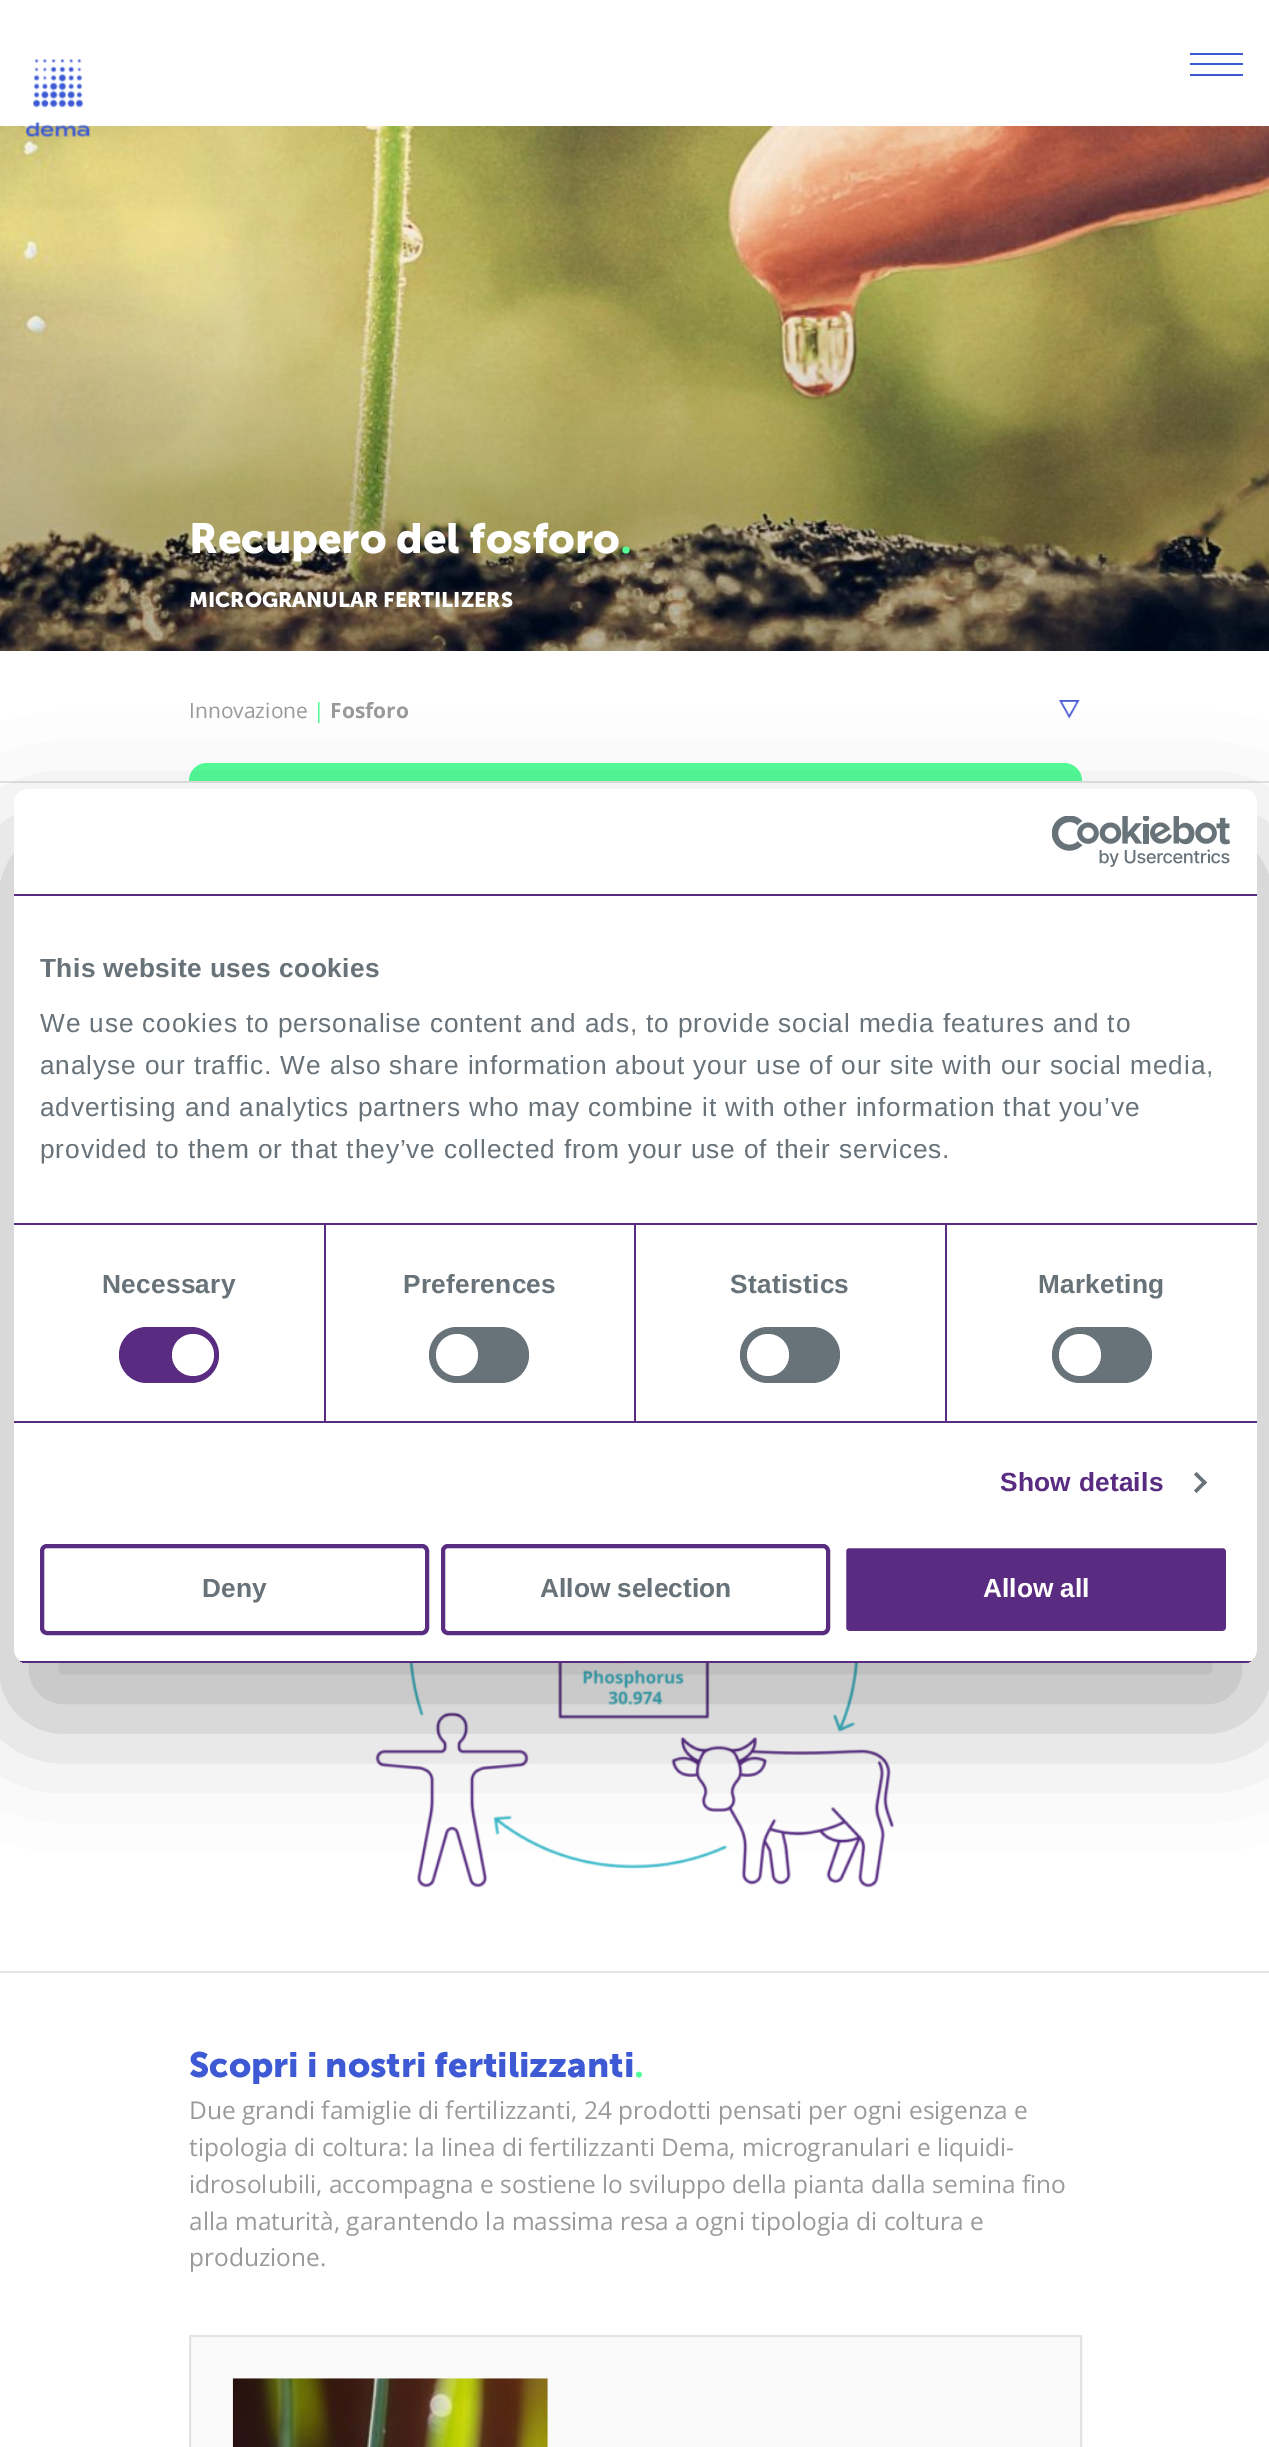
%!PS
<< /PageSize [1269 2447] /PageUsesTransparency true >> setpagedevice
/alpha { dup .setfillconstantalpha .setstrokeconstantalpha } def
/roundrect { 5 dict begin { /r /h /w /y /x } { exch def } forall
  x r add y moveto x w add y 2 copy h add r arct x w add y h add x 1 index r arct
  x y h add x y r arct x y 2 copy exch w add exch r arct closepath end } def
/shadow { 12 dict begin { /a /b /q /h /w /y /x } { exch def } forall gsave /was 0 def
  9 -2 -9 { dup b mul 4 div /e exch def 1 sub .425 mul 2.718 exch exp 1 add a .99 .min exch div /now exch def
    1 1 now sub 1 was sub div sub alpha /was now def
    w h .min e 2 mul add 0 gt { x e sub y e sub w e 2 mul add h e 2 mul add
      q e add b .6 mul add w h .min 2 div e add .min 0 .max roundrect fill } if } for grestore end } def
/picture { 5 dict begin { /h /w /y /x /name } { exch def } forall
  gsave x y translate w h scale
  w h 8 [w 0 0 h 0 0] name (r) file false 3 colorimage grestore end } def
0 .pushpdf14devicefilter
0 2447 translate 1 -1 scale
4 setmiterlimit
1 setgray
0 0 1269 2447 rectfill
(img2.rgb) 0 126 1269 525 picture
(img1.rgb) 26 59 65 78 picture
0.239 0.353 0.831 setrgbcolor
1190 63 53 2 rectfill
1190 53 53 2 rectfill
1190 74 53 2 rectfill
/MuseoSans-Regular [42 0 0 -42 0 0] selectfont
1 setgray
189 553 moveto (Recupero del fosforo) show
/OpenSans-Bold [42 0 0 -42 0 0] selectfont
0.329 0.992 0.596 setrgbcolor
620 553 moveto (.) show
/MuseoSans-Regular [21 0 0 -21 0 0] selectfont
1 setgray
189 607 moveto (MICROGRANULAR FERTILIZERS) show
/OpenSans-Regular [21 0 0 -21 0 0] selectfont
0.604 setgray
189 718 moveto (Innovazione) show
0.329 0.992 0.596 setrgbcolor
313 718 moveto (|) show
/OpenSans-Bold [21 0 0 -21 0 0] selectfont
0.604 setgray
330 718 moveto (Fosforo) show
(img3.rgb) 1058 700 22 19 picture
0.89 setgray
0 781 1269 2 rectfill
0 1971 1269 2 rectfill
0.329 0.992 0.596 setrgbcolor
newpath 207 763 moveto 1064 763 lineto 1074 763 1082 771 1082 781 curveto 189 781 lineto 189 771 197 763 207 763 curveto closepath fill
(img4.rgb) 375 1663 520 225 picture
/MuseoSans-Regular [35 0 0 -35 0 0] selectfont
0.239 0.353 0.831 setrgbcolor
189 2077 moveto (Scopri i nostri fertilizzanti) show
/OpenSans-Bold [35 0 0 -35 0 0] selectfont
0.329 0.992 0.596 setrgbcolor
634 2077 moveto (.) show
/OpenSans-Regular [24.5 0 0 -24.5 0 0] selectfont
0.604 setgray
189 2119 moveto (Due grandi famiglie di fertilizzanti, 24 prodotti pensati per ogni esigenza e) show
189 2156 moveto (tipologia di coltura: la linea di fertilizzanti Dema, microgranulari e liquidi-) show
189 2193 moveto (idrosolubili, accompagna e sostiene lo sviluppo della pianta dalla semina fino) show
189 2230 moveto (alla maturità, garantendo la massima resa a ogni tipologia di coltura e) show
189 2266 moveto (produzione.) show
0.98 setgray
newpath 190 2336 moveto 1081 2336 lineto 1081 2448 lineto 190 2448 lineto closepath gsave fill grestore
0.89 setgray
2 setlinewidth
stroke
(img5.rgb) 232 2378 316 69 picture
0 setgray
14 845 1243 874 14 59.5 0.3 shadow
1 setgray
14 789 1243 874 14 roundrect fill
0.349 0.173 0.51 setrgbcolor
14 894 1243 2 rectfill
(img6.rgb) 1052 816 178 51 picture
14 1223 1243 2 rectfill
/LiberationSans-Bold [26.25 0 0 -26.25 0 0] selectfont
0.408 0.447 0.475 setrgbcolor
40 977 moveto 0.4 0 (This website uses cookies) ashow
/LiberationSans-Regular [26.25 0 0 -26.25 0 0] selectfont
40 1032 moveto 0.88 0 (We use cookies to personalise content and ads, to provide social media features and to) ashow
40 1074 moveto 0.88 0 (analyse our traffic. We also share information about your use of our site with our social media,) ashow
40 1116 moveto 0.88 0 (advertising and analytics partners who may combine it with other information that you’ve) ashow
40 1158 moveto 0.88 0 (provided to them or that they’ve collected from your use of their services.) ashow
0.349 0.173 0.51 setrgbcolor
14 1421 1243 2 rectfill
324 1225 2 196 rectfill
/LiberationSans-Bold [26.25 0 0 -26.25 0 0] selectfont
0.408 0.447 0.475 setrgbcolor
102 1293 moveto 0.25 0 (Necessary) ashow
0.349 0.173 0.51 setrgbcolor
119 1327 100 56 28 roundrect fill
1 setgray
newpath 193 1355 21 0 360 arc closepath fill
0.349 0.173 0.51 setrgbcolor
634 1225 2 196 rectfill
0.408 0.447 0.475 setrgbcolor
403 1293 moveto 0.25 0 (Preferences) ashow
429 1327 100 56 28 roundrect fill
1 setgray
newpath 457 1355 21 0 360 arc closepath fill
0.349 0.173 0.51 setrgbcolor
945 1225 2 196 rectfill
0.408 0.447 0.475 setrgbcolor
730 1293 moveto 0.25 0 (Statistics) ashow
740 1327 100 56 28 roundrect fill
1 setgray
newpath 768 1355 21 0 360 arc closepath fill
0.408 0.447 0.475 setrgbcolor
1038 1293 moveto 0.25 0 (Marketing) ashow
1052 1327 100 56 28 roundrect fill
1 setgray
newpath 1080 1355 21 0 360 arc closepath fill
0.349 0.173 0.51 setrgbcolor
1000 1491 moveto 0.25 0 (Show details) ashow
0.408 0.447 0.475 setrgbcolor
newpath 1196.5 1472 moveto 1207 1482.5 lineto 1204.5 1485 lineto 1194 1474.5 lineto closepath fill
newpath 1204.5 1480 moveto 1207 1482.5 lineto 1196.5 1493 lineto 1194 1490.5 lineto closepath fill
gsave
14 789 1243 874 14 roundrect clip newpath
0.349 0.173 0.51 setrgbcolor
14 1661 1243 2 rectfill
grestore
0.349 0.173 0.51 setrgbcolor
4 setlinewidth
42 1546 385 87 5 roundrect stroke
0.408 0.447 0.475 setrgbcolor
202 1597 moveto (Deny) show
0.349 0.173 0.51 setrgbcolor
443 1546 385 87 5 roundrect stroke
0.408 0.447 0.475 setrgbcolor
540 1597 moveto (Allow selection) show
0.349 0.173 0.51 setrgbcolor
844 1546 384 87 5 roundrect gsave fill grestore
1 setgray
stroke
983 1597 moveto (Allow all) show
.poppdf14devicefilter showpage
